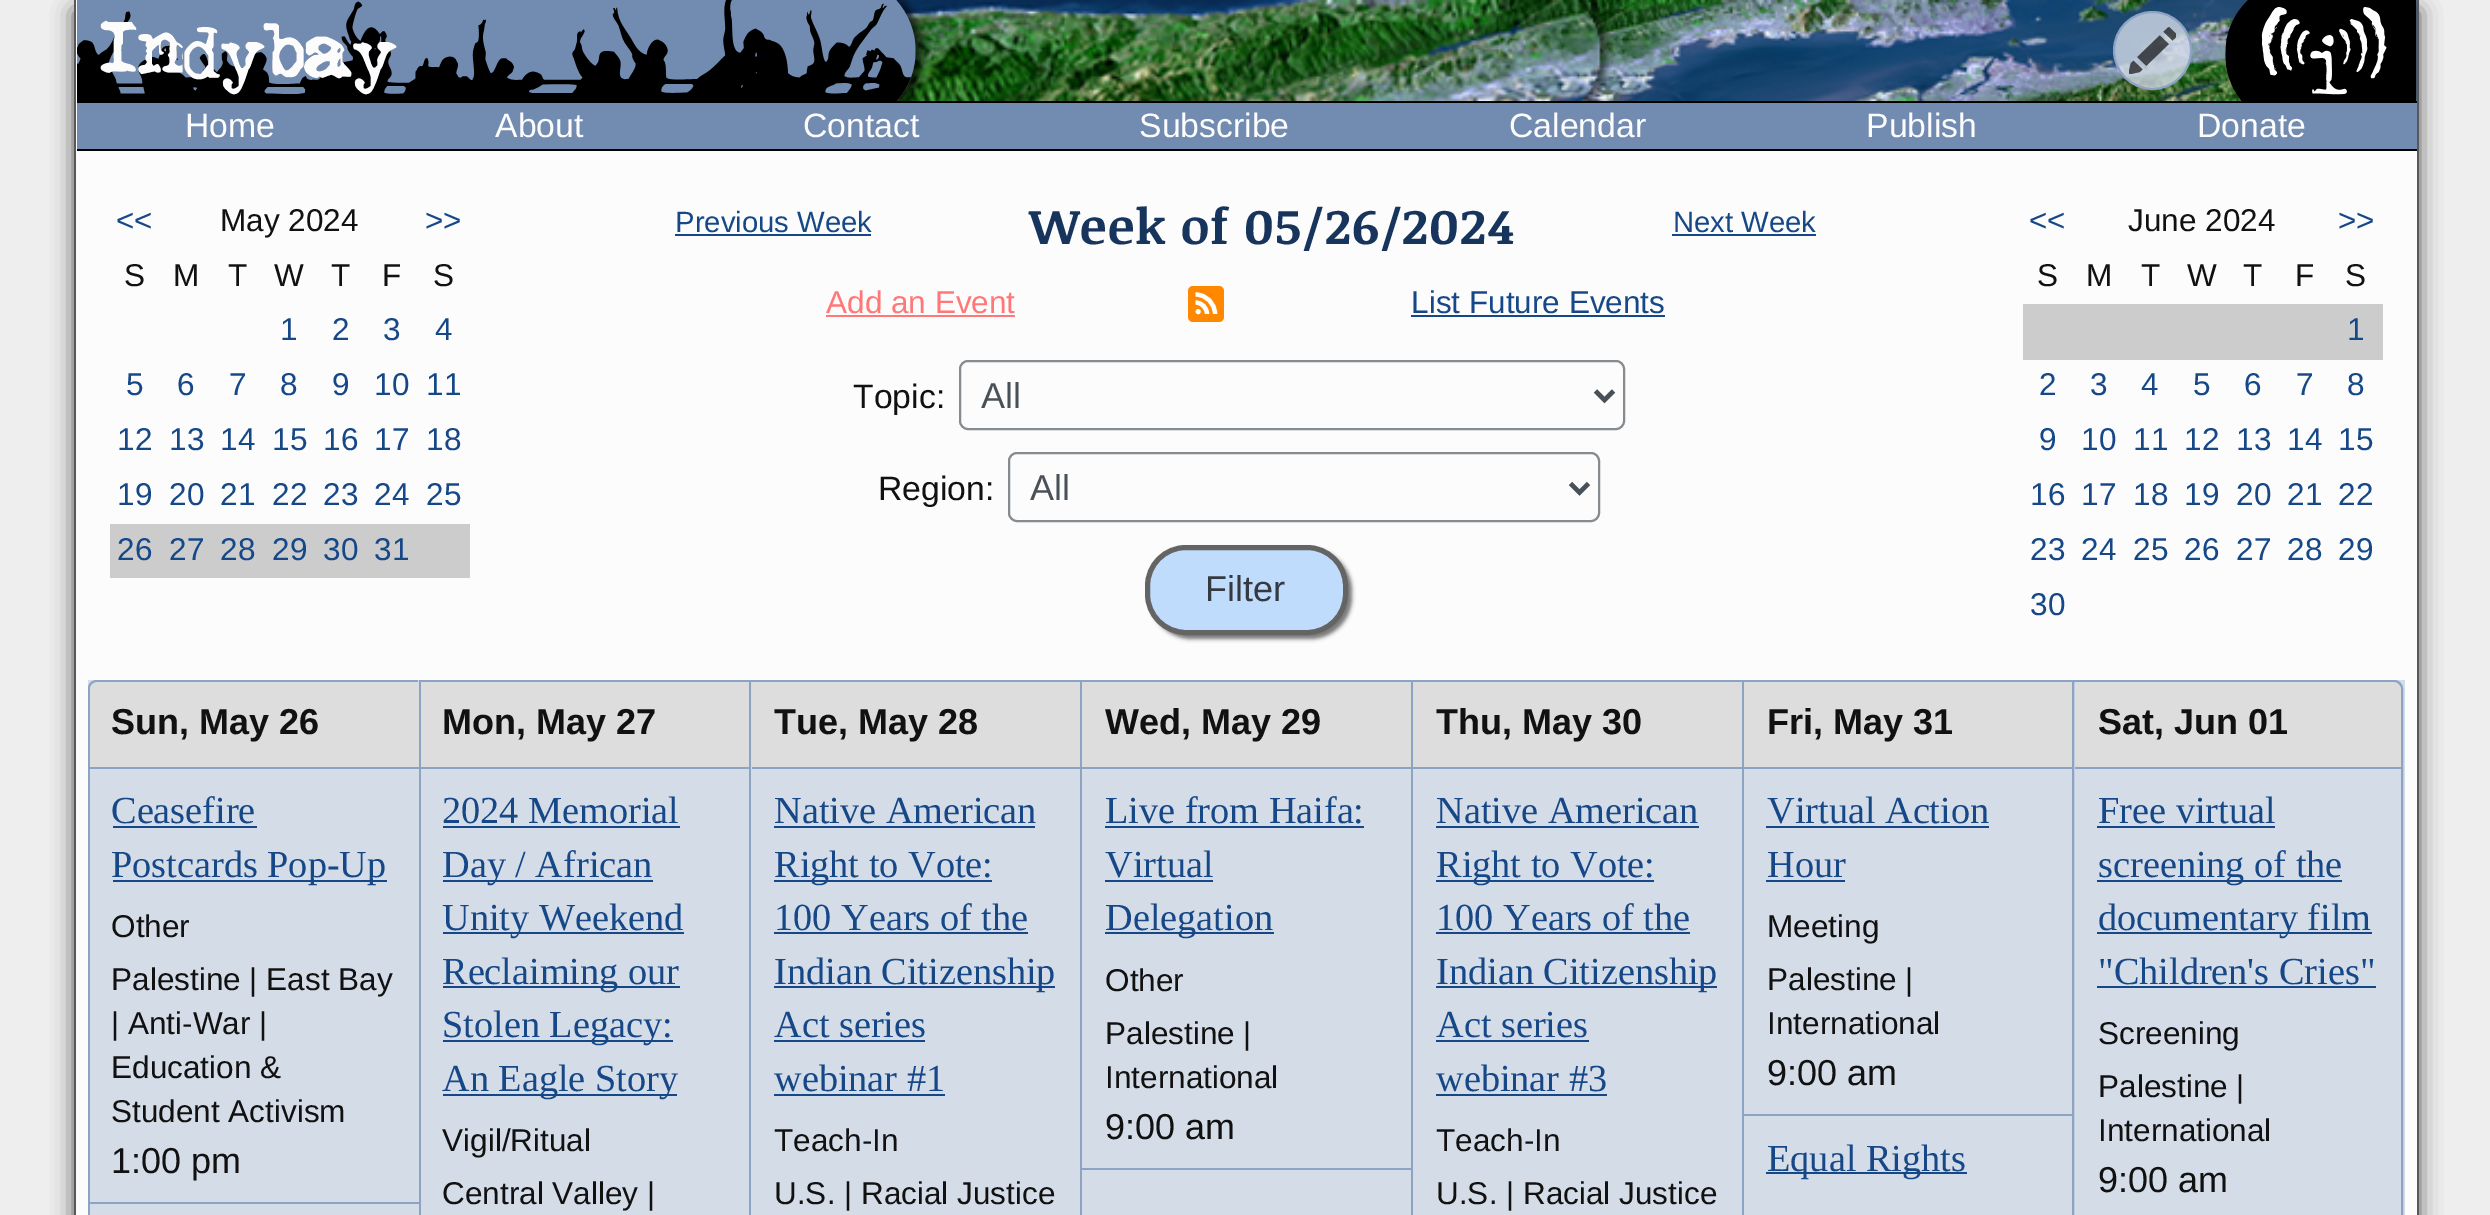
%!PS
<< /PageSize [2490 1215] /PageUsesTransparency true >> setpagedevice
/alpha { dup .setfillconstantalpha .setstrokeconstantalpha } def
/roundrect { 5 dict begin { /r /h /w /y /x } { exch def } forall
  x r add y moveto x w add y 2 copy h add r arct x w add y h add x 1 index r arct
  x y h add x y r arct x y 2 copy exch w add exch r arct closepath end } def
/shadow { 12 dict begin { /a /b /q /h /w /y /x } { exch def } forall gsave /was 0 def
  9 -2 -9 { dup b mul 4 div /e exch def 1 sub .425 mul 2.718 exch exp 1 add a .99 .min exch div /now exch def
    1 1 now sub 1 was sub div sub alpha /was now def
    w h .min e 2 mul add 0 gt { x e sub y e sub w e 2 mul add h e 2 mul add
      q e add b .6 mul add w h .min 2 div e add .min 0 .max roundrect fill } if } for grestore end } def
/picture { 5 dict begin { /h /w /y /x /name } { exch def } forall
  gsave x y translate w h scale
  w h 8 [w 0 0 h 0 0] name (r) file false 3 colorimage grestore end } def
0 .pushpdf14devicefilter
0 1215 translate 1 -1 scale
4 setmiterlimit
0.933 setgray
0 0 2490 1215 rectfill
0 setgray
74 11 2345 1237 0 11 0.65 shadow
0.988 setgray
76 0 2341 1215 rectfill
0.345 setgray
2417 0 2 1215 rectfill
74 0 2 1215 rectfill
0.447 0.545 0.69 setrgbcolor
77 0 2340 149 rectfill
0 setgray
77 101 2340 2 rectfill
(img4.rgb) 893 0 1357 102 picture
(img1.rgb) 77 0 852 101 picture
/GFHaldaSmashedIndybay-Regular [79 0 0 -79 0 0] selectfont
0.302 0.369 0.467 setrgbcolor
98 79 moveto (Indybay) show
0.988 setgray
98 79 moveto (Indybay) show
0.8 alpha
0.831 0.863 0.91 setrgbcolor
newpath 2152.5 50.5 38.5 0 360 arc closepath fill
1 alpha
0.553 0.639 0.769 setrgbcolor
2 setlinewidth
newpath 2152.5 50.5 38.5 0 360 arc closepath stroke
(img2.rgb) 2129 27 47 47 picture
(img3.rgb) 2224 0 193 101 picture
0 setgray
77 149 2340 2 rectfill
/LiberationSans-Regular [33.75 0 0 -33.75 0 0] selectfont
0.988 setgray
185 137 moveto (Home) show
495 137 moveto (About) show
803 137 moveto (Contact) show
1139 137 moveto (Subscribe) show
1509 137 moveto (Calendar) show
1866 137 moveto (Publish) show
2197 137 moveto (Donate) show
/LiberationSans-Regular [31.5 0 0 -31.5 0 0] selectfont
0.086 0.282 0.533 setrgbcolor
116 231 moveto (<<) show
0.067 setgray
220 231 moveto (May 2024) show
0.086 0.282 0.533 setrgbcolor
425 231 moveto (>>) show
0.067 setgray
124 286 moveto (S) show
173 286 moveto (M) show
228 286 moveto (T) show
274 286 moveto (W) show
331 286 moveto (T) show
382 286 moveto (F) show
433 286 moveto (S) show
0.086 0.282 0.533 setrgbcolor
280 340 moveto (1) show
332 340 moveto (2) show
383 340 moveto (3) show
435 340 moveto (4) show
126 395 moveto (5) show
177 395 moveto (6) show
229 395 moveto (7) show
280 395 moveto (8) show
332 395 moveto (9) show
374 395 moveto (10) show
426 395 moveto (11) show
117 450 moveto (12) show
169 450 moveto (13) show
220 450 moveto (14) show
272 450 moveto (15) show
323 450 moveto (16) show
374 450 moveto (17) show
426 450 moveto (18) show
117 505 moveto (19) show
169 505 moveto (20) show
220 505 moveto (21) show
272 505 moveto (22) show
323 505 moveto (23) show
374 505 moveto (24) show
426 505 moveto (25) show
0.8 setgray
110 524 360 54 rectfill
0.086 0.282 0.533 setrgbcolor
117 560 moveto (26) show
169 560 moveto (27) show
220 560 moveto (28) show
272 560 moveto (29) show
323 560 moveto (30) show
374 560 moveto (31) show
/LiberationSans-Regular [29.25 0 0 -29.25 0 0] selectfont
675 232 moveto (Previous Week) show
675 234 196 2 rectfill
/NoticiaText-Bold [49.5 0 0 -49.5 0 0] selectfont
0.086 0.204 0.361 setrgbcolor
1029 244 moveto 1.1 0 (Week of 05/26/2024) ashow
/LiberationSans-Regular [29.25 0 0 -29.25 0 0] selectfont
0.086 0.282 0.533 setrgbcolor
1673 232 moveto (Next Week) show
1672 234 144 2 rectfill
/LiberationSans-Regular [31.5 0 0 -31.5 0 0] selectfont
1 0.467 0.467 setrgbcolor
826 313 moveto (Add an Event) show
826 315 189 2 rectfill
1 0.533 0 setrgbcolor
1188 286 36 36 5 roundrect fill
1 setgray
newpath 1198.2 311.6 2.5 0 360 arc closepath fill
4.2 setlinewidth
newpath 1195.5 302.5 moveto 1202 302.5 1207 308 1207 314 curveto 1215 314 moveto 1215 303.5 1206.5 294.5 1195.5 294.5 curveto stroke
0.086 0.282 0.533 setrgbcolor
1411 313 moveto (List Future Events) show
1411 315 254 2 rectfill
/LiberationSans-Regular [33.75 0 0 -33.75 0 0] selectfont
0.067 setgray
853 408 moveto (Topic:) show
0.525 0.545 0.565 setrgbcolor
2 setlinewidth
960 361 664 68 8 roundrect stroke
0.286 0.314 0.341 setrgbcolor
4.5 setlinewidth
newpath 1595.5 391 moveto 1604.5 400 lineto 1613.5 391 lineto stroke
/LiberationSans-Regular [36 0 0 -36 0 0] selectfont
981 408 moveto (All) show
/LiberationSans-Regular [33.75 0 0 -33.75 0 0] selectfont
0.067 setgray
878 500 moveto (Region:) show
0.525 0.545 0.565 setrgbcolor
2 setlinewidth
1009 453 590 68 8 roundrect stroke
0.286 0.314 0.341 setrgbcolor
4.5 setlinewidth
newpath 1570.5 483.5 moveto 1579.5 492.5 lineto 1588.5 483.5 lineto stroke
/LiberationSans-Regular [36 0 0 -36 0 0] selectfont
1030 500 moveto (All) show
0.467 setgray
1150 549 202 90 41 2 1 shadow
0.753 0.863 0.992 setrgbcolor
1147.5 547.5 198 85 38.5 roundrect gsave fill grestore
0.392 setgray
5 setlinewidth
stroke
0.204 0.227 0.251 setrgbcolor
1205 601 moveto (Filter) show
/LiberationSans-Regular [31.5 0 0 -31.5 0 0] selectfont
0.086 0.282 0.533 setrgbcolor
2029 231 moveto (<<) show
0.067 setgray
2128 231 moveto (June 2024) show
0.086 0.282 0.533 setrgbcolor
2338 231 moveto (>>) show
0.067 setgray
2037 286 moveto (S) show
2086 286 moveto (M) show
2141 286 moveto (T) show
2187 286 moveto (W) show
2243 286 moveto (T) show
2295 286 moveto (F) show
2345 286 moveto (S) show
0.8 setgray
2023 304 360 56 rectfill
0.086 0.282 0.533 setrgbcolor
2347 340 moveto (1) show
2039 395 moveto (2) show
2090 395 moveto (3) show
2141 395 moveto (4) show
2193 395 moveto (5) show
2244 395 moveto (6) show
2296 395 moveto (7) show
2347 395 moveto (8) show
2039 450 moveto (9) show
2081 450 moveto (10) show
2133 450 moveto (11) show
2184 450 moveto (12) show
2236 450 moveto (13) show
2287 450 moveto (14) show
2338 450 moveto (15) show
2030 505 moveto (16) show
2081 505 moveto (17) show
2133 505 moveto (18) show
2184 505 moveto (19) show
2236 505 moveto (20) show
2287 505 moveto (21) show
2338 505 moveto (22) show
2030 560 moveto (23) show
2081 560 moveto (24) show
2133 560 moveto (25) show
2184 560 moveto (26) show
2236 560 moveto (27) show
2287 560 moveto (28) show
2338 560 moveto (29) show
2030 615 moveto (30) show
0.831 0.863 0.91 setrgbcolor
88 680 2317 535 rectfill
0.553 0.639 0.769 setrgbcolor
newpath 97 680 moveto 418 680 lineto 418 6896 lineto 97 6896 lineto 92 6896 88 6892 88 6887 curveto 88 688 lineto 88 684 92 680 97 680 curveto closepath 97 682 moveto 418 682 lineto 418 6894 lineto 97 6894 lineto 93 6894 90 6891 90 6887 curveto 90 688 lineto 90 685 93 682 97 682 curveto closepath eofill
0.867 setgray
newpath 99 682 moveto 419 682 lineto 419 770 lineto 90 770 lineto 90 691 lineto 90 686 94 682 99 682 curveto closepath fill
0.553 0.639 0.769 setrgbcolor
90 767 329 2 rectfill
/LiberationSans-Bold [36 0 0 -36 0 0] selectfont
0.067 setgray
111 734 moveto (Sun, May 26) show
0.553 0.639 0.769 setrgbcolor
90 1202 329 2 rectfill
/LiberationSerif-Regular [38.25 0 0 -38.25 0 0] selectfont
0.086 0.282 0.533 setrgbcolor
111 823 moveto (Ceasefire) show
113 826 144 2 rectfill
113 880 274 2 rectfill
111 877 moveto (Postcards Pop-Up) show
/LiberationSans-Regular [31.5 0 0 -31.5 0 0] selectfont
0.067 setgray
111 937 moveto (Other) show
111 990 moveto (Palestine | East Bay) show
111 1034 moveto (| Anti-War |) show
111 1078 moveto (Education &) show
111 1122 moveto (Student Activism) show
/LiberationSans-Regular [36 0 0 -36 0 0] selectfont
111 1173 moveto (1:00 pm) show
0.553 0.639 0.769 setrgbcolor
419 680 1653 2 rectfill
419 680 2 535 rectfill
0.867 setgray
421 682 328 88 rectfill
0.553 0.639 0.769 setrgbcolor
421 767 328 2 rectfill
/LiberationSans-Bold [36 0 0 -36 0 0] selectfont
0.067 setgray
442 734 moveto (Mon, May 27) show
/LiberationSerif-Regular [38.25 0 0 -38.25 0 0] selectfont
0.086 0.282 0.533 setrgbcolor
442 823 moveto (2024 Memorial) show
443 826 237 2 rectfill
443 880 210 2 rectfill
442 877 moveto (Day / African) show
443 932 241 2 rectfill
442 930 moveto (Unity Weekend) show
443 986 237 2 rectfill
442 984 moveto (Reclaiming our) show
443 1040 230 2 rectfill
442 1037 moveto (Stolen Legacy:) show
443 1094 234 2 rectfill
442 1091 moveto (An Eagle Story) show
/LiberationSans-Regular [31.5 0 0 -31.5 0 0] selectfont
0.067 setgray
442 1151 moveto (Vigil/Ritual) show
442 1204 moveto (Central Valley |) show
0.553 0.639 0.769 setrgbcolor
749 680 2 535 rectfill
0.867 setgray
752 682 328 88 rectfill
0.553 0.639 0.769 setrgbcolor
752 767 328 2 rectfill
/LiberationSans-Bold [36 0 0 -36 0 0] selectfont
0.067 setgray
774 734 moveto (Tue, May 28) show
/LiberationSerif-Regular [38.25 0 0 -38.25 0 0] selectfont
0.086 0.282 0.533 setrgbcolor
774 823 moveto (Native American) show
774 826 261 2 rectfill
774 880 218 2 rectfill
774 877 moveto (Right to Vote:) show
774 930 moveto (100 Years of the) show
774 932 254 2 rectfill
774 986 281 2 rectfill
774 984 moveto (Indian Citizenship) show
774 1037 moveto (Act series) show
774 1040 151 2 rectfill
774 1091 moveto (webinar #1) show
774 1094 171 2 rectfill
/LiberationSans-Regular [31.5 0 0 -31.5 0 0] selectfont
0.067 setgray
774 1151 moveto (Teach-In) show
774 1204 moveto (U.S. | Racial Justice) show
0.553 0.639 0.769 setrgbcolor
1080 680 2 535 rectfill
0.867 setgray
1082 682 329 88 rectfill
0.553 0.639 0.769 setrgbcolor
1082 767 329 2 rectfill
/LiberationSans-Bold [36 0 0 -36 0 0] selectfont
0.067 setgray
1105 734 moveto (Wed, May 29) show
0.553 0.639 0.769 setrgbcolor
1082 1168 329 2 rectfill
/LiberationSerif-Regular [38.25 0 0 -38.25 0 0] selectfont
0.086 0.282 0.533 setrgbcolor
1105 823 moveto (Live from Haifa:) show
1105 826 259 2 rectfill
1105 877 moveto (Virtual) show
1105 880 108 2 rectfill
1105 932 169 2 rectfill
1105 930 moveto (Delegation) show
/LiberationSans-Regular [31.5 0 0 -31.5 0 0] selectfont
0.067 setgray
1105 991 moveto (Other) show
1105 1044 moveto (Palestine |) show
1105 1088 moveto (International) show
/LiberationSans-Regular [36 0 0 -36 0 0] selectfont
1105 1139 moveto (9:00 am) show
0.553 0.639 0.769 setrgbcolor
1411 680 2 535 rectfill
0.867 setgray
1413 682 329 88 rectfill
0.553 0.639 0.769 setrgbcolor
1413 767 329 2 rectfill
/LiberationSans-Bold [36 0 0 -36 0 0] selectfont
0.067 setgray
1436 734 moveto (Thu, May 30) show
/LiberationSerif-Regular [38.25 0 0 -38.25 0 0] selectfont
0.086 0.282 0.533 setrgbcolor
1436 823 moveto (Native American) show
1436 826 263 2 rectfill
1436 880 218 2 rectfill
1436 877 moveto (Right to Vote:) show
1436 930 moveto (100 Years of the) show
1436 932 254 2 rectfill
1436 986 281 2 rectfill
1436 984 moveto (Indian Citizenship) show
1436 1037 moveto (Act series) show
1436 1040 153 2 rectfill
1436 1091 moveto (webinar #3) show
1436 1094 171 2 rectfill
/LiberationSans-Regular [31.5 0 0 -31.5 0 0] selectfont
0.067 setgray
1436 1151 moveto (Teach-In) show
1436 1204 moveto (U.S. | Racial Justice) show
0.553 0.639 0.769 setrgbcolor
1742 680 2 535 rectfill
0.867 setgray
1744 682 328 88 rectfill
0.553 0.639 0.769 setrgbcolor
1744 767 328 2 rectfill
/LiberationSans-Bold [36 0 0 -36 0 0] selectfont
0.067 setgray
1767 734 moveto (Fri, May 31) show
0.553 0.639 0.769 setrgbcolor
1744 1114 328 2 rectfill
/LiberationSerif-Regular [38.25 0 0 -38.25 0 0] selectfont
0.086 0.282 0.533 setrgbcolor
1767 823 moveto (Virtual Action) show
1766 826 223 2 rectfill
1767 877 moveto (Hour) show
1766 880 79 2 rectfill
/LiberationSans-Regular [31.5 0 0 -31.5 0 0] selectfont
0.067 setgray
1767 937 moveto (Meeting) show
1767 990 moveto (Palestine |) show
1767 1034 moveto (International) show
/LiberationSans-Regular [36 0 0 -36 0 0] selectfont
1767 1085 moveto (9:00 am) show
0.086 0.282 0.533 setrgbcolor
1766 1172 201 2 rectfill
/LiberationSerif-Regular [38.25 0 0 -38.25 0 0] selectfont
1767 1171 moveto (Equal Rights) show
0.553 0.639 0.769 setrgbcolor
2 setlinewidth
newpath 2073 681 moveto 2394 681 lineto 2398.5 681 2402 684.5 2402 689 curveto 2402 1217 lineto 2402 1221.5 2398.5 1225 2394 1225 curveto 2073 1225 lineto closepath stroke
0.867 setgray
newpath 2075 682 moveto 2392 682 lineto 2397 682 2401 686 2401 691 curveto 2401 770 lineto 2075 770 lineto closepath fill
0.553 0.639 0.769 setrgbcolor
2075 767 326 2 rectfill
/LiberationSans-Bold [36 0 0 -36 0 0] selectfont
0.067 setgray
2098 734 moveto (Sat, Jun 01) show
/LiberationSerif-Regular [38.25 0 0 -38.25 0 0] selectfont
0.086 0.282 0.533 setrgbcolor
2098 823 moveto (Free virtual) show
2097 826 178 2 rectfill
2097 880 245 2 rectfill
2098 877 moveto (screening of the) show
2097 932 275 2 rectfill
2098 930 moveto (documentary film) show
2098 984 moveto ("Children's Cries") show
2097 986 279 2 rectfill
/LiberationSans-Regular [31.5 0 0 -31.5 0 0] selectfont
0.067 setgray
2098 1044 moveto (Screening) show
2098 1097 moveto (Palestine |) show
2098 1141 moveto (International) show
/LiberationSans-Regular [36 0 0 -36 0 0] selectfont
2098 1192 moveto (9:00 am) show
.poppdf14devicefilter showpage
